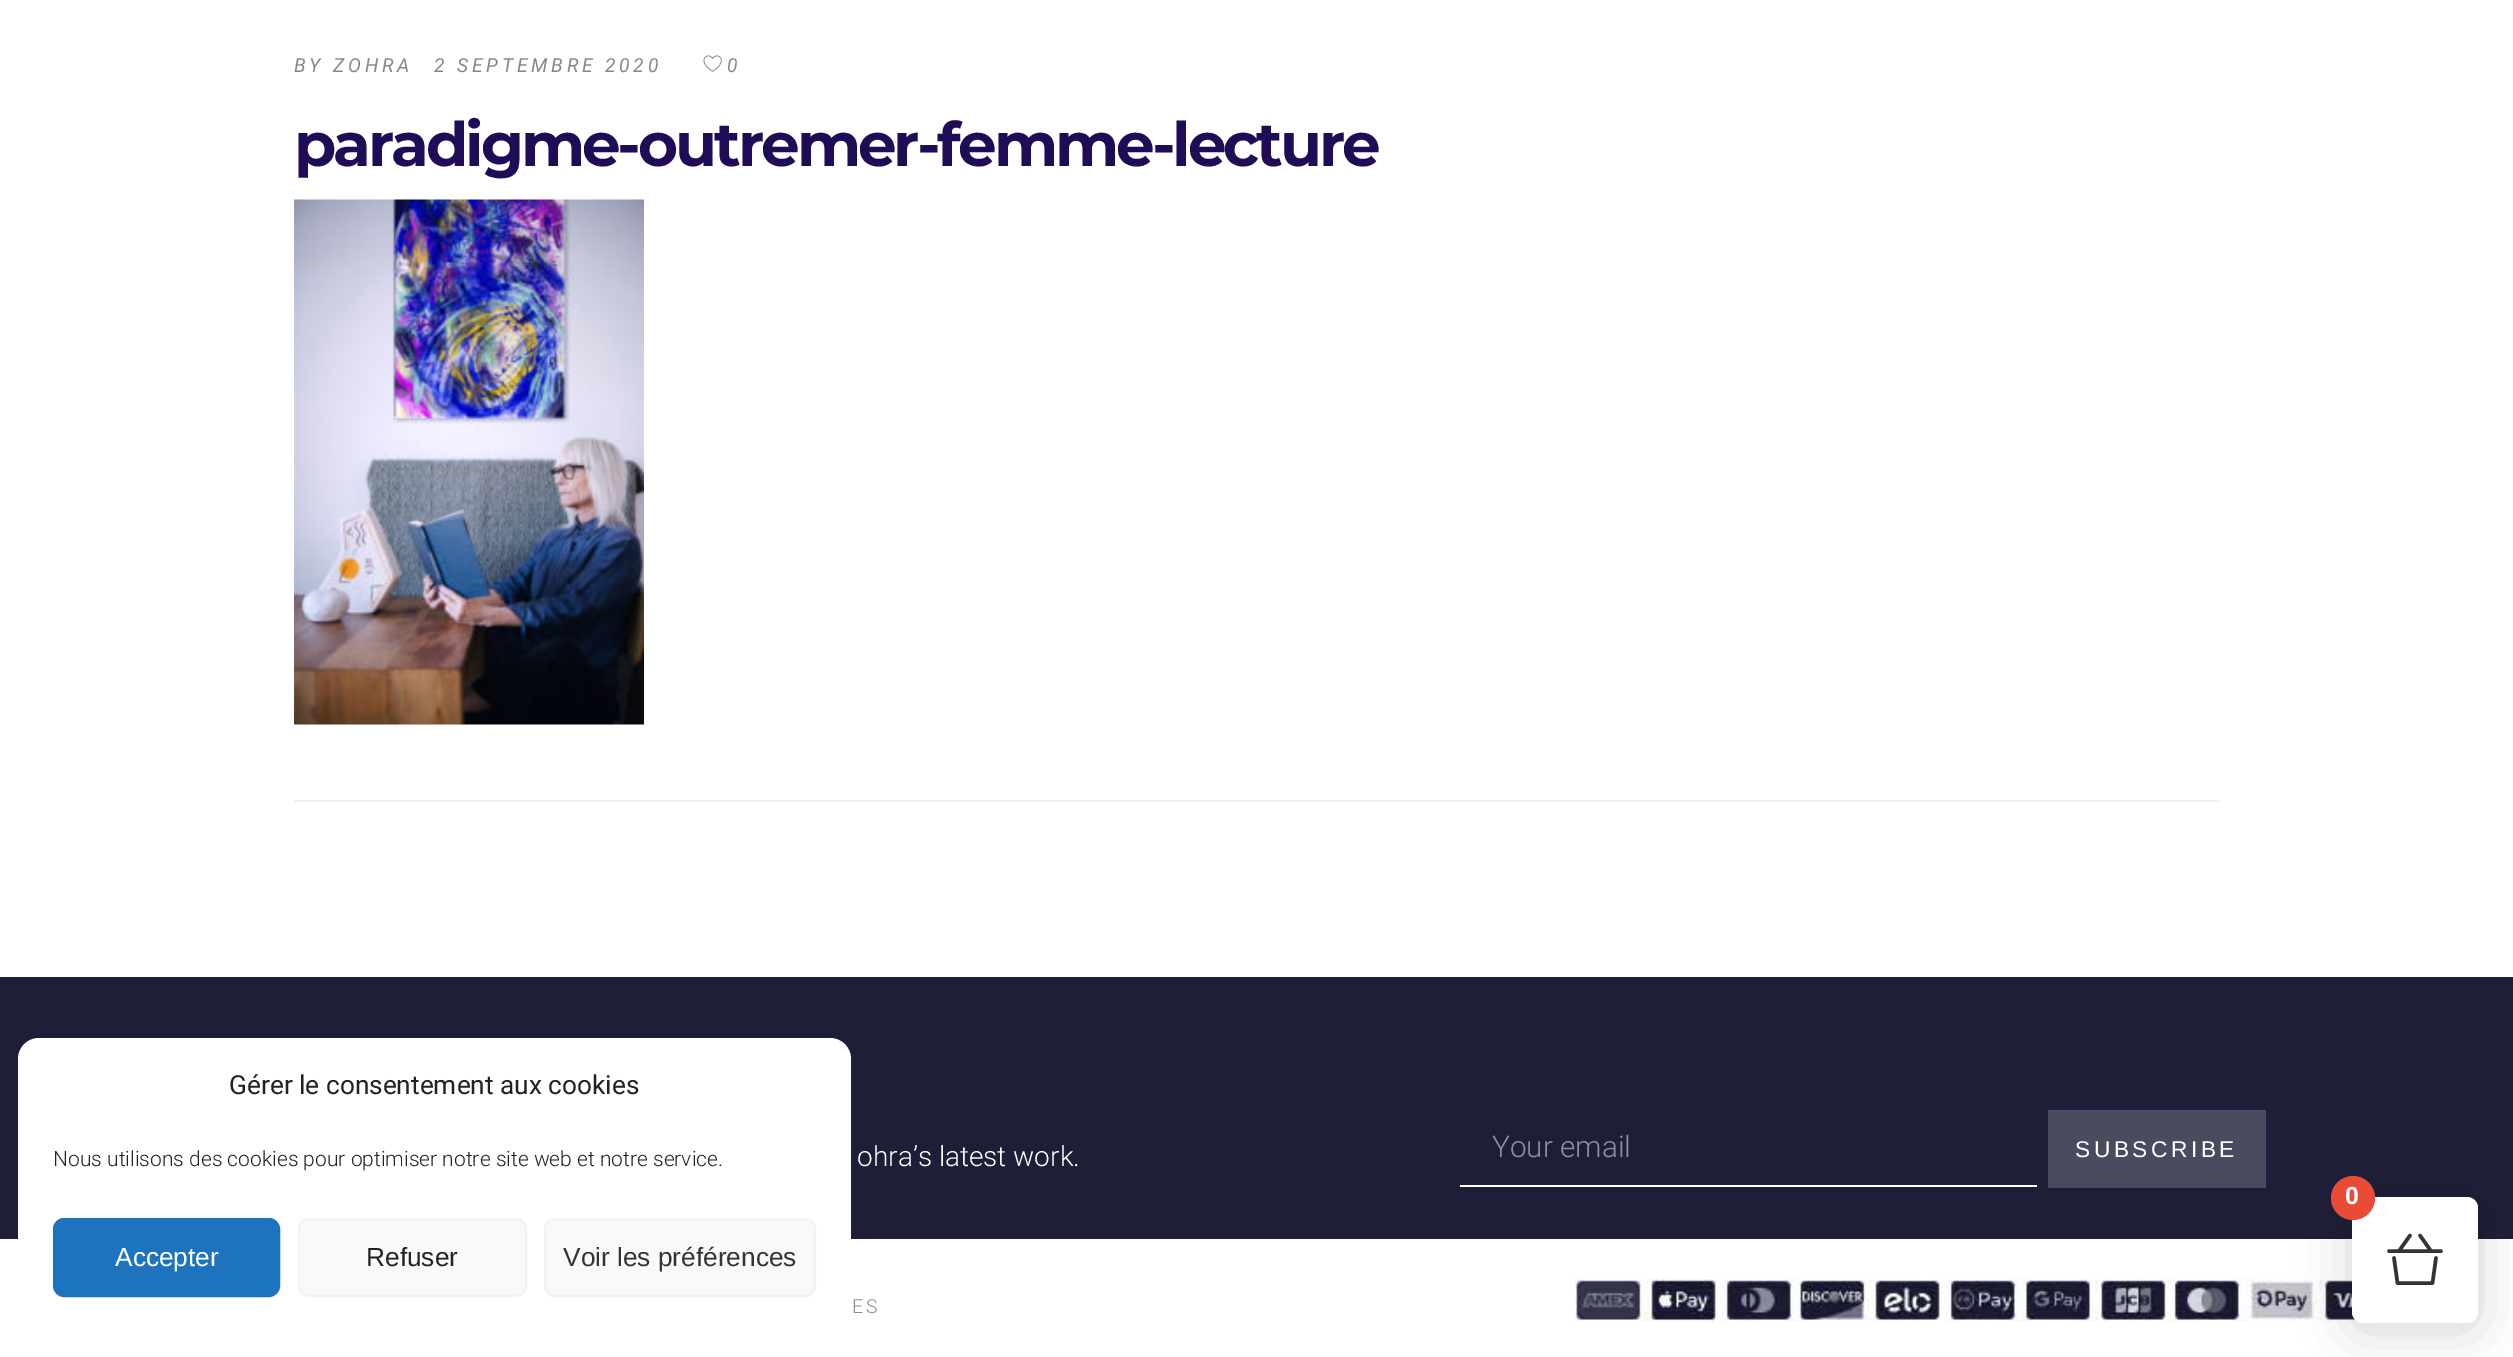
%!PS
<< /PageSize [2513 1357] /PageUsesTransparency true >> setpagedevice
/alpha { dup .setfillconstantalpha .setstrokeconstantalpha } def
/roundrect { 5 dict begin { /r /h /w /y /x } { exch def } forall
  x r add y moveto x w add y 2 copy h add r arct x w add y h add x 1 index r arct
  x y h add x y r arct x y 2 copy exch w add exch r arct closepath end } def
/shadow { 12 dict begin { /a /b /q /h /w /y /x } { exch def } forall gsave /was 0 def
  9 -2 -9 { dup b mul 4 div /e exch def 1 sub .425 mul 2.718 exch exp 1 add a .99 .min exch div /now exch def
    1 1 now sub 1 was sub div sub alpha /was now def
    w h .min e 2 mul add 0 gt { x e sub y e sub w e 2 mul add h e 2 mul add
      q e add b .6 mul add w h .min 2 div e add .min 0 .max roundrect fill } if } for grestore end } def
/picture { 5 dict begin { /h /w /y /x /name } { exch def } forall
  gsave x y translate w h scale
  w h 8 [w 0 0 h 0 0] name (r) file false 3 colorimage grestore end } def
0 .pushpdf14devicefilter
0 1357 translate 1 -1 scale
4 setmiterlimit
1 setgray
0 0 2513 1357 rectfill
/Roboto-Italic [19.25 0 0 -19.25 0 0] selectfont
0.529 setgray
294 72 moveto 3.8 0 (BY ZOHRA) ashow
434 72 moveto 3.8 0 (2 SEPTEMBRE 2020) ashow
(img1.rgb) 703 55 19 17 picture
727 72 moveto 3.8 0 (0) ashow
/Montserrat-Bold [61.25 0 0 -61.25 0 0] selectfont
0.125 0.043 0.341 setrgbcolor
294 166 moveto -3.05 0 (paradigme-outremer-femme-lecture) ashow
(img2.rgb) 294 199 350 526 picture
0.937 setgray
294 800 1925 2 rectfill
0.118 0.118 0.22 setrgbcolor
0 977 2513 262 rectfill
/Roboto-Light [28 0 0 -28 0 0] selectfont
1 setgray
857 1166 moveto (ohra’s latest work.) show
1460 1185 577 2 rectfill
/Roboto-Light [29.75 0 0 -29.75 0 0] selectfont
0.561 0.561 0.612 setrgbcolor
1492 1157 moveto (Your email) show
0.294 0.294 0.376 setrgbcolor
2048 1110 218 78 rectfill
/LiberationSans-Regular [22.75 0 0 -22.75 0 0] selectfont
1 setgray
2075 1157 moveto 3.5 0 (SUBSCRIBE) ashow
/Roboto-Light [19.25 0 0 -19.25 0 0] selectfont
0.573 0.525 0.592 setrgbcolor
852 1313 moveto 3 0 (ES) ashow
(img3.rgb) 1575 1279 784 43 picture
1 setgray
18 1038 833 303 21 roundrect fill
/Roboto-Regular [26.25 0 0 -26.25 0 0] selectfont
0.133 setgray
229 1094 moveto (Gérer le consentement aux cookies) show
/Roboto-Light [21 0 0 -21 0 0] selectfont
53 1166 moveto (Nous utilisons des cookies pour optimiser notre site web et notre service.) show
0.118 0.451 0.745 setrgbcolor
54 1219 225 77 10 roundrect gsave fill grestore
2 setlinewidth
stroke
/LiberationSans-Regular [26.25 0 0 -26.25 0 0] selectfont
1 setgray
115 1266 moveto (Accepter) show
0.976 setgray
299 1219 227 77 10 roundrect gsave fill grestore
0.949 setgray
stroke
0.133 setgray
366 1266 moveto (Refuser) show
0.976 setgray
545 1219 270 77 10 roundrect gsave fill grestore
0.949 setgray
stroke
0.2 setgray
563 1266 moveto (Voir les préférences) show
0 setgray
2352 1204 126 126 11 26 0.17 shadow
1 setgray
2352 1197 126 126 11 roundrect fill
0.914 0.294 0.208 setrgbcolor
newpath 2353 1198 22 0 360 arc closepath fill
/Roboto-Bold [24 0 0 -24 0 0] selectfont
1 setgray
2345 1204 moveto (0) show
0.204 setgray
3.5 setlinewidth
1 setlinecap
1 setlinejoin
newpath 2399 1251 moveto 2410 1235.5 lineto 2431 1251 moveto 2420 1235.5 lineto 2436 1258 moveto 2432.5 1283 lineto 2397.5 1283 lineto 2394 1258 lineto 2389 1251 moveto 2441 1251 lineto stroke
.poppdf14devicefilter showpage
